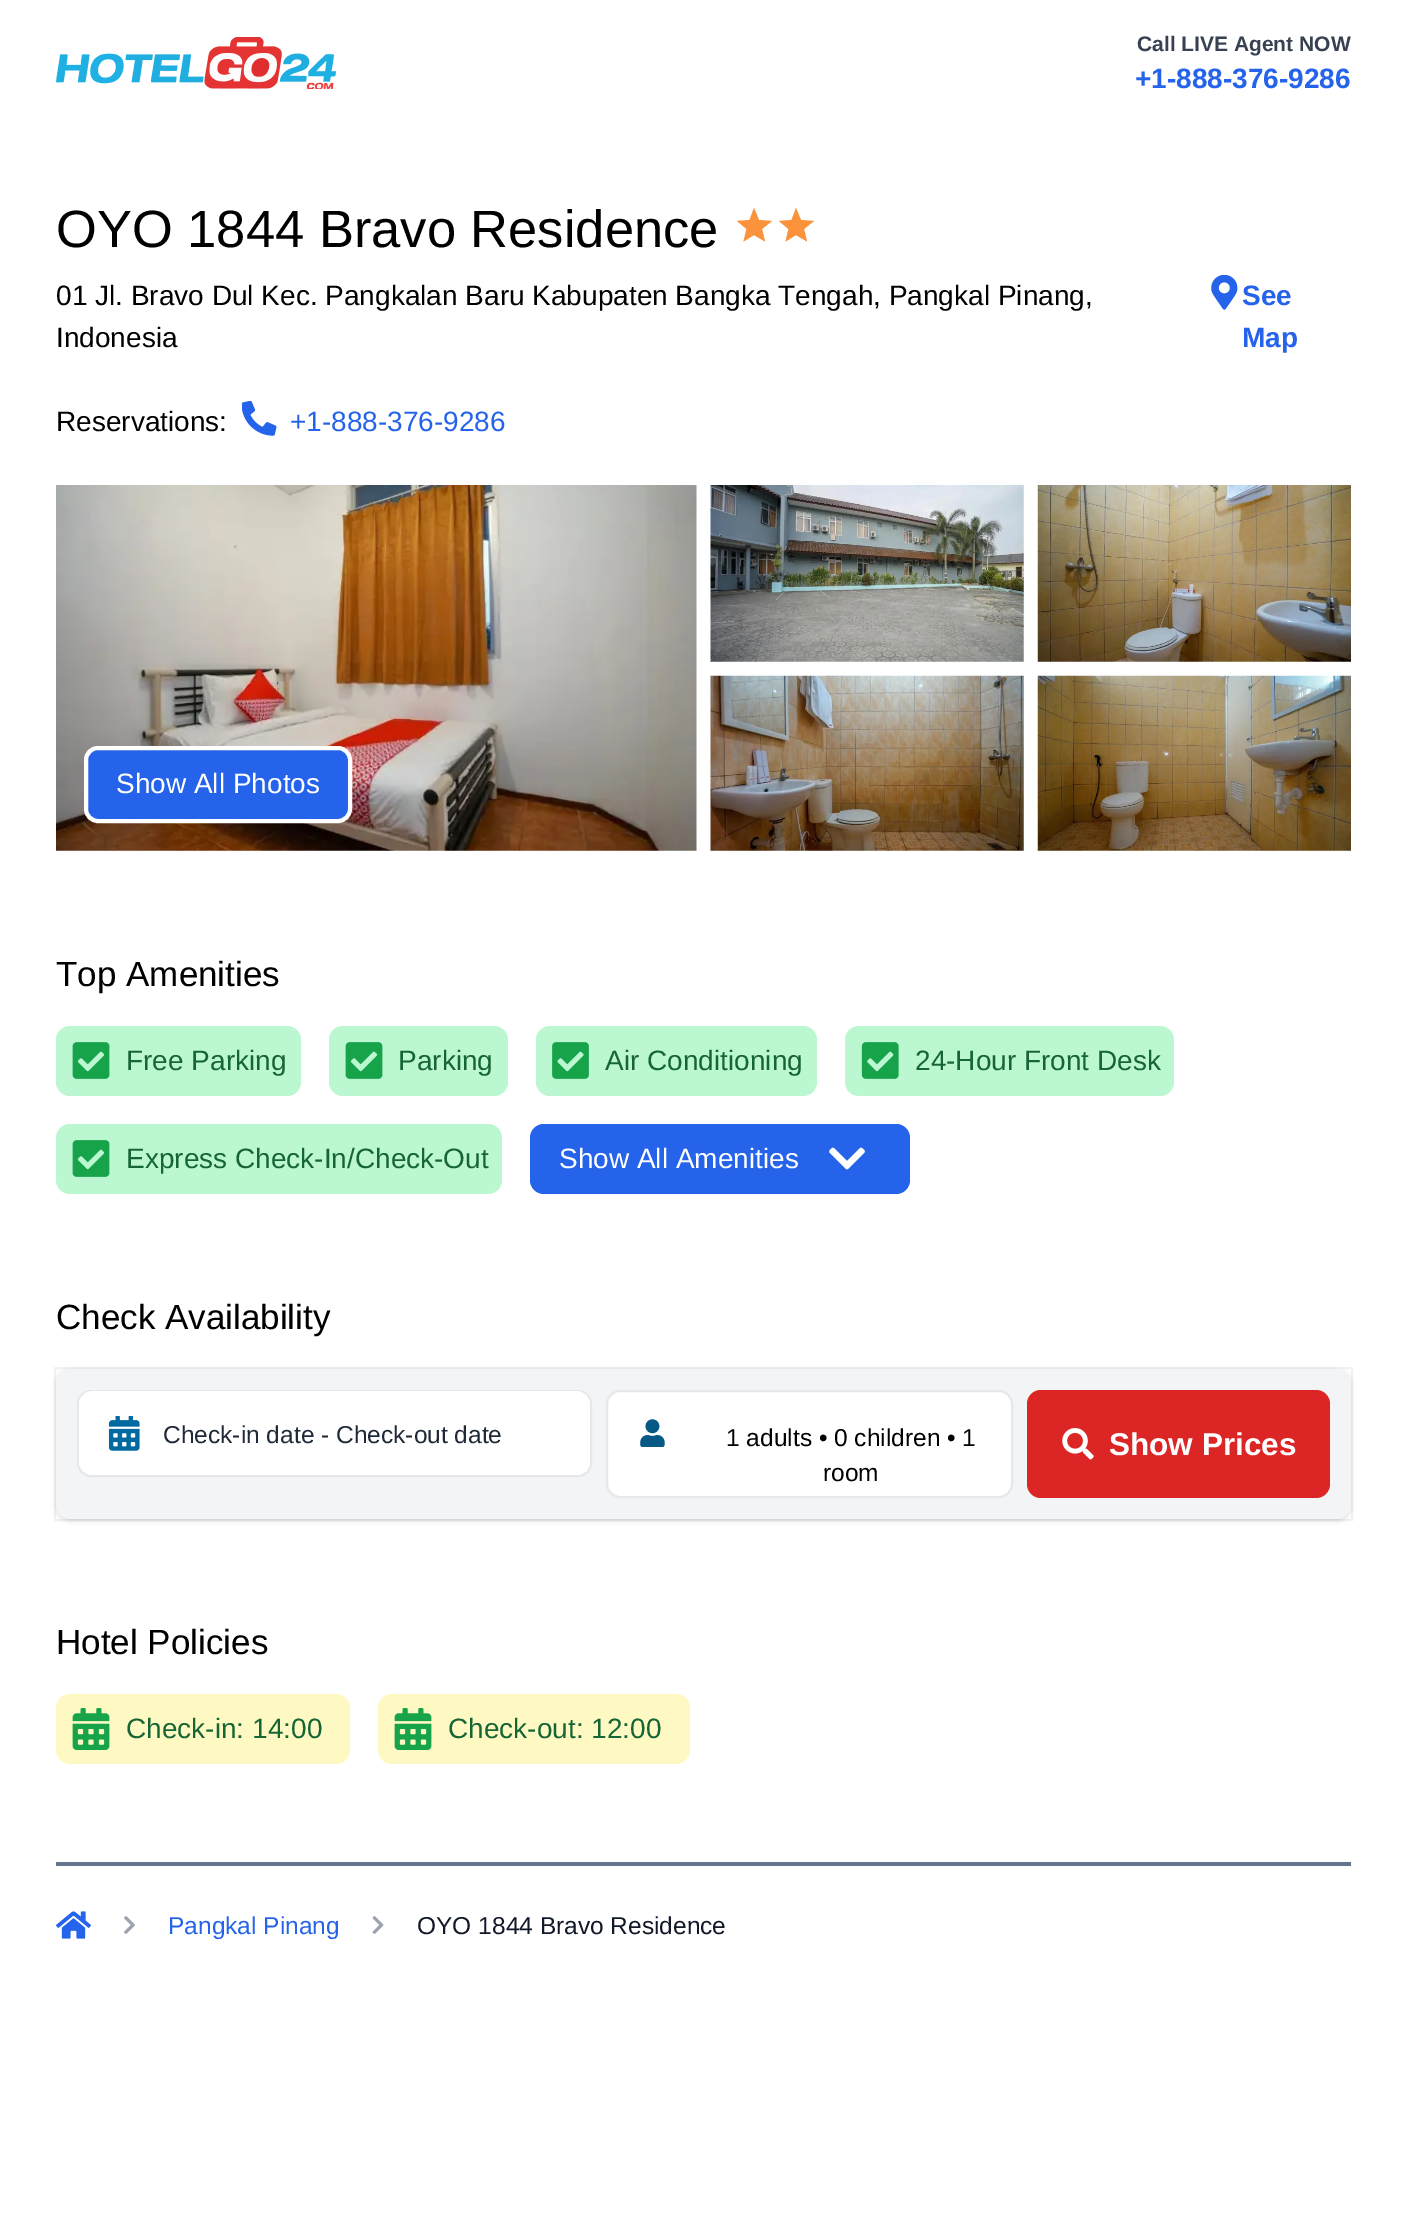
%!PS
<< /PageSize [1406 2218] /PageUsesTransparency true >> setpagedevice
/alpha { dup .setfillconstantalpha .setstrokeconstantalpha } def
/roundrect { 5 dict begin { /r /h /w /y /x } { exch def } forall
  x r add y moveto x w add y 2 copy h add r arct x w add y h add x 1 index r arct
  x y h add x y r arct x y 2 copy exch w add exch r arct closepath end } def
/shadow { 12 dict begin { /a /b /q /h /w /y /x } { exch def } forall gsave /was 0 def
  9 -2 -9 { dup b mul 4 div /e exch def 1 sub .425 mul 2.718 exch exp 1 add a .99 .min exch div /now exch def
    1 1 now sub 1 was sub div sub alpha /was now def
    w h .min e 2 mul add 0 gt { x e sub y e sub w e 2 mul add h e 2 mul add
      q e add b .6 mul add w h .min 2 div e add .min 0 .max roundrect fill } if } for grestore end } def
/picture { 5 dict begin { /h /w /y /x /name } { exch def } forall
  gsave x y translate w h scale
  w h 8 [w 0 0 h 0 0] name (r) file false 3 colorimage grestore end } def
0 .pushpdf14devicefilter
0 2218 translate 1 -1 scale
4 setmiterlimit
1 setgray
0 0 1406 2218 rectfill
(img1.rgb) 56 37 280 52 picture
/LiberationSans-Bold [21 0 0 -21 0 0] selectfont
0.216 0.255 0.318 setrgbcolor
1137 51 moveto (Call LIVE Agent NOW) show
/LiberationSans-Bold [28 0 0 -28 0 0] selectfont
0.145 0.388 0.922 setrgbcolor
1135 88 moveto (+1-888-376-9286) show
/LiberationSans-Regular [52.5 0 0 -52.5 0 0] selectfont
0 setgray
56 247 moveto (OYO 1844 Bravo Residence) show
0.984 0.573 0.235 setrgbcolor
newpath 754 235 moveto 765 241.5 lineto 762 229 lineto 772 221 lineto 759 220 lineto 754 208 lineto 749.5 220 lineto 737 221 lineto 746.5 229 lineto 743.5 241.5 lineto closepath fill
newpath 796 235 moveto 807 241.5 lineto 804 229 lineto 814 221 lineto 801 220 lineto 796 208 lineto 791.5 220 lineto 779 221 lineto 788.5 229 lineto 785.5 241.5 lineto closepath fill
/LiberationSans-Regular [28 0 0 -28 0 0] selectfont
0 setgray
56 305 moveto (01 Jl. Bravo Dul Kec. Pangkalan Baru Kabupaten Bangka Tengah, Pangkal Pinang,) show
56 347 moveto (Indonesia) show
(img2.rgb) 1211 275 27 35 picture
/LiberationSans-Bold [28 0 0 -28 0 0] selectfont
0.145 0.388 0.922 setrgbcolor
1242 305 moveto (See) show
1242 347 moveto (Map) show
/LiberationSans-Regular [28 0 0 -28 0 0] selectfont
0 setgray
56 431 moveto (Reservations:) show
(img3.rgb) 242 401 35 35 picture
0.145 0.388 0.922 setrgbcolor
290 431 moveto (+1-888-376-9286) show
(img4.rgb) 56 485 641 366 picture
(img5.rgb) 710 485 314 177 picture
(img6.rgb) 1037 485 314 177 picture
(img7.rgb) 710 675 314 176 picture
(img8.rgb) 1037 675 314 176 picture
86 748 264 73 12 roundrect gsave fill grestore
1 setgray
4 setlinewidth
stroke
116 793 moveto (Show All Photos) show
/LiberationSans-Regular [35 0 0 -35 0 0] selectfont
0 setgray
56 986 moveto (Top Amenities) show
0.733 0.969 0.816 setrgbcolor
56 1026 245 70 14 roundrect fill
(img9.rgb) 72 1042 38 37 picture
/LiberationSans-Regular [28 0 0 -28 0 0] selectfont
0.086 0.396 0.204 setrgbcolor
126 1070 moveto (Free Parking) show
0.733 0.969 0.816 setrgbcolor
329 1026 179 70 14 roundrect fill
(img9.rgb) 345 1042 38 37 picture
0.086 0.396 0.204 setrgbcolor
398 1070 moveto (Parking) show
0.733 0.969 0.816 setrgbcolor
536 1026 281 70 14 roundrect fill
(img10.rgb) 552 1042 37 37 picture
0.086 0.396 0.204 setrgbcolor
605 1070 moveto (Air Conditioning) show
0.733 0.969 0.816 setrgbcolor
845 1026 329 70 14 roundrect fill
(img11.rgb) 861 1042 38 37 picture
0.086 0.396 0.204 setrgbcolor
915 1070 moveto (24-Hour Front Desk) show
0.733 0.969 0.816 setrgbcolor
56 1124 446 70 14 roundrect fill
(img9.rgb) 72 1140 38 37 picture
0.086 0.396 0.204 setrgbcolor
126 1168 moveto (Express Check-In/Check-Out) show
0.145 0.388 0.922 setrgbcolor
530 1124 380 70 14 roundrect fill
1 setgray
559 1168 moveto (Show All Amenities) show
(img12.rgb) 829 1147 36 23 picture
/LiberationSans-Regular [35 0 0 -35 0 0] selectfont
0 setgray
56 1329 moveto (Check Availability) show
58 1372 1291 147 12 2 0.1 shadow
56 1370 1295 151 14 2.5 0.1 shadow
0.05 alpha
2 setlinewidth
55 1368 1297 152 rectstroke
1 alpha
0.953 0.957 0.965 setrgbcolor
56 1369 1295 150 14 roundrect fill
1 setgray
78 1391 513 85 13 roundrect gsave fill grestore
0.898 0.906 0.922 setrgbcolor
stroke
1 setgray
79 1391 511 84 14 roundrect fill
(img13.rgb) 108 1416 32 35 picture
/LiberationSans-Regular [24.5 0 0 -24.5 0 0] selectfont
0.122 0.161 0.216 setrgbcolor
163 1443 moveto (Check-in date - Check-out date) show
1 setgray
607 1391 405 106 13 roundrect gsave fill grestore
0.898 0.906 0.922 setrgbcolor
stroke
(img14.rgb) 640 1419 25 28 picture
0 setgray
726 1446 moveto (1 adults • 0 children • 1) show
823 1481 moveto (room) show
0.863 0.149 0.149 setrgbcolor
1027 1390 303 108 14 roundrect fill
(img15.rgb) 1062 1428 32 32 picture
/LiberationSans-Bold [31.5 0 0 -31.5 0 0] selectfont
1 setgray
1109 1455 moveto (Show Prices) show
/LiberationSans-Regular [35 0 0 -35 0 0] selectfont
0 setgray
56 1654 moveto (Hotel Policies) show
0.996 0.976 0.765 setrgbcolor
56 1694 294 70 14 roundrect fill
(img16.rgb) 72 1708 38 42 picture
/LiberationSans-Regular [28 0 0 -28 0 0] selectfont
0.086 0.396 0.204 setrgbcolor
126 1738 moveto (Check-in: 14:00) show
0.996 0.976 0.765 setrgbcolor
378 1694 312 70 14 roundrect fill
(img16.rgb) 394 1708 38 42 picture
0.086 0.396 0.204 setrgbcolor
448 1738 moveto (Check-out: 12:00) show
0.392 0.455 0.545 setrgbcolor
56 1862 1295 4 rectfill
(img17.rgb) 56 1911 35 28 picture
(img18.rgb) 124 1916 11 18 picture
/LiberationSans-Regular [24.5 0 0 -24.5 0 0] selectfont
0.145 0.388 0.922 setrgbcolor
168 1934 moveto (Pangkal Pinang) show
(img19.rgb) 372 1916 12 18 picture
0.067 0.094 0.153 setrgbcolor
417 1934 moveto (OYO 1844 Bravo Residence) show
.poppdf14devicefilter showpage
